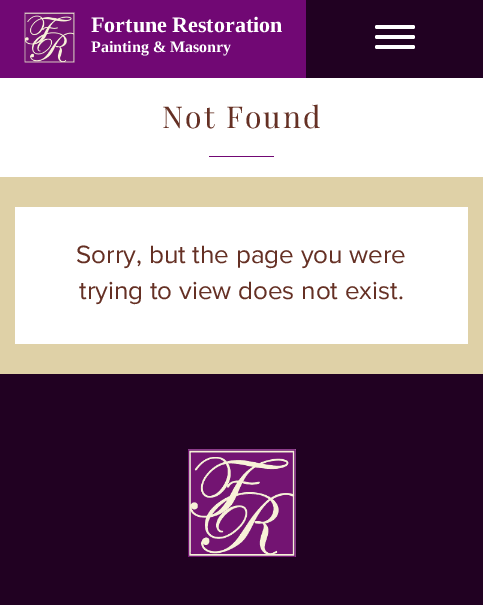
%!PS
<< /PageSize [483 605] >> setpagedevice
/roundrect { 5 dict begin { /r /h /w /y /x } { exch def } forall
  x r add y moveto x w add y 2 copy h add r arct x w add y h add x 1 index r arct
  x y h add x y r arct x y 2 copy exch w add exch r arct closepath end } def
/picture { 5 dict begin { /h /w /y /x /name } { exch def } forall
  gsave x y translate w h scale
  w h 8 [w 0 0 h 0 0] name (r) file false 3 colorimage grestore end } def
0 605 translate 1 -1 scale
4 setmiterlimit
0.875 0.82 0.655 setrgbcolor
0 0 483 605 rectfill
0.443 0.031 0.455 setrgbcolor
0 0 306 78 rectfill
(img1.rgb) 24 12 51 51 picture
/LiberationSerif-Bold [22 0 0 -22 0 0] selectfont
1 setgray
91 32 moveto (Fortune Restoration) show
/LiberationSerif-Bold [16 0 0 -16 0 0] selectfont
91 52 moveto (Painting & Masonry) show
0.129 0.004 0.133 setrgbcolor
306 0 177 78 rectfill
1 setgray
375 25 40 4 2 roundrect fill
375 35 40 4 2 roundrect fill
375 45 40 4 2 roundrect fill
0 78 483 99 rectfill
/PlayfairDisplay-Regular [30 0 0 -30 0 0] selectfont
0.396 0.188 0.141 setrgbcolor
162 128 moveto 2 0 (Not Found) ashow
0.443 0.031 0.455 setrgbcolor
209 156 65 1 rectfill
1 setgray
15 207 453 137 rectfill
/ProximaNova-Regular [26 0 0 -26 0 0] selectfont
0.396 0.188 0.141 setrgbcolor
76 263 moveto (Sorry, but the page you were) show
79 299 moveto (trying to view does not exist.) show
0.129 0.004 0.133 setrgbcolor
0 374 483 231 rectfill
(img2.rgb) 188 449 108 108 picture
showpage
